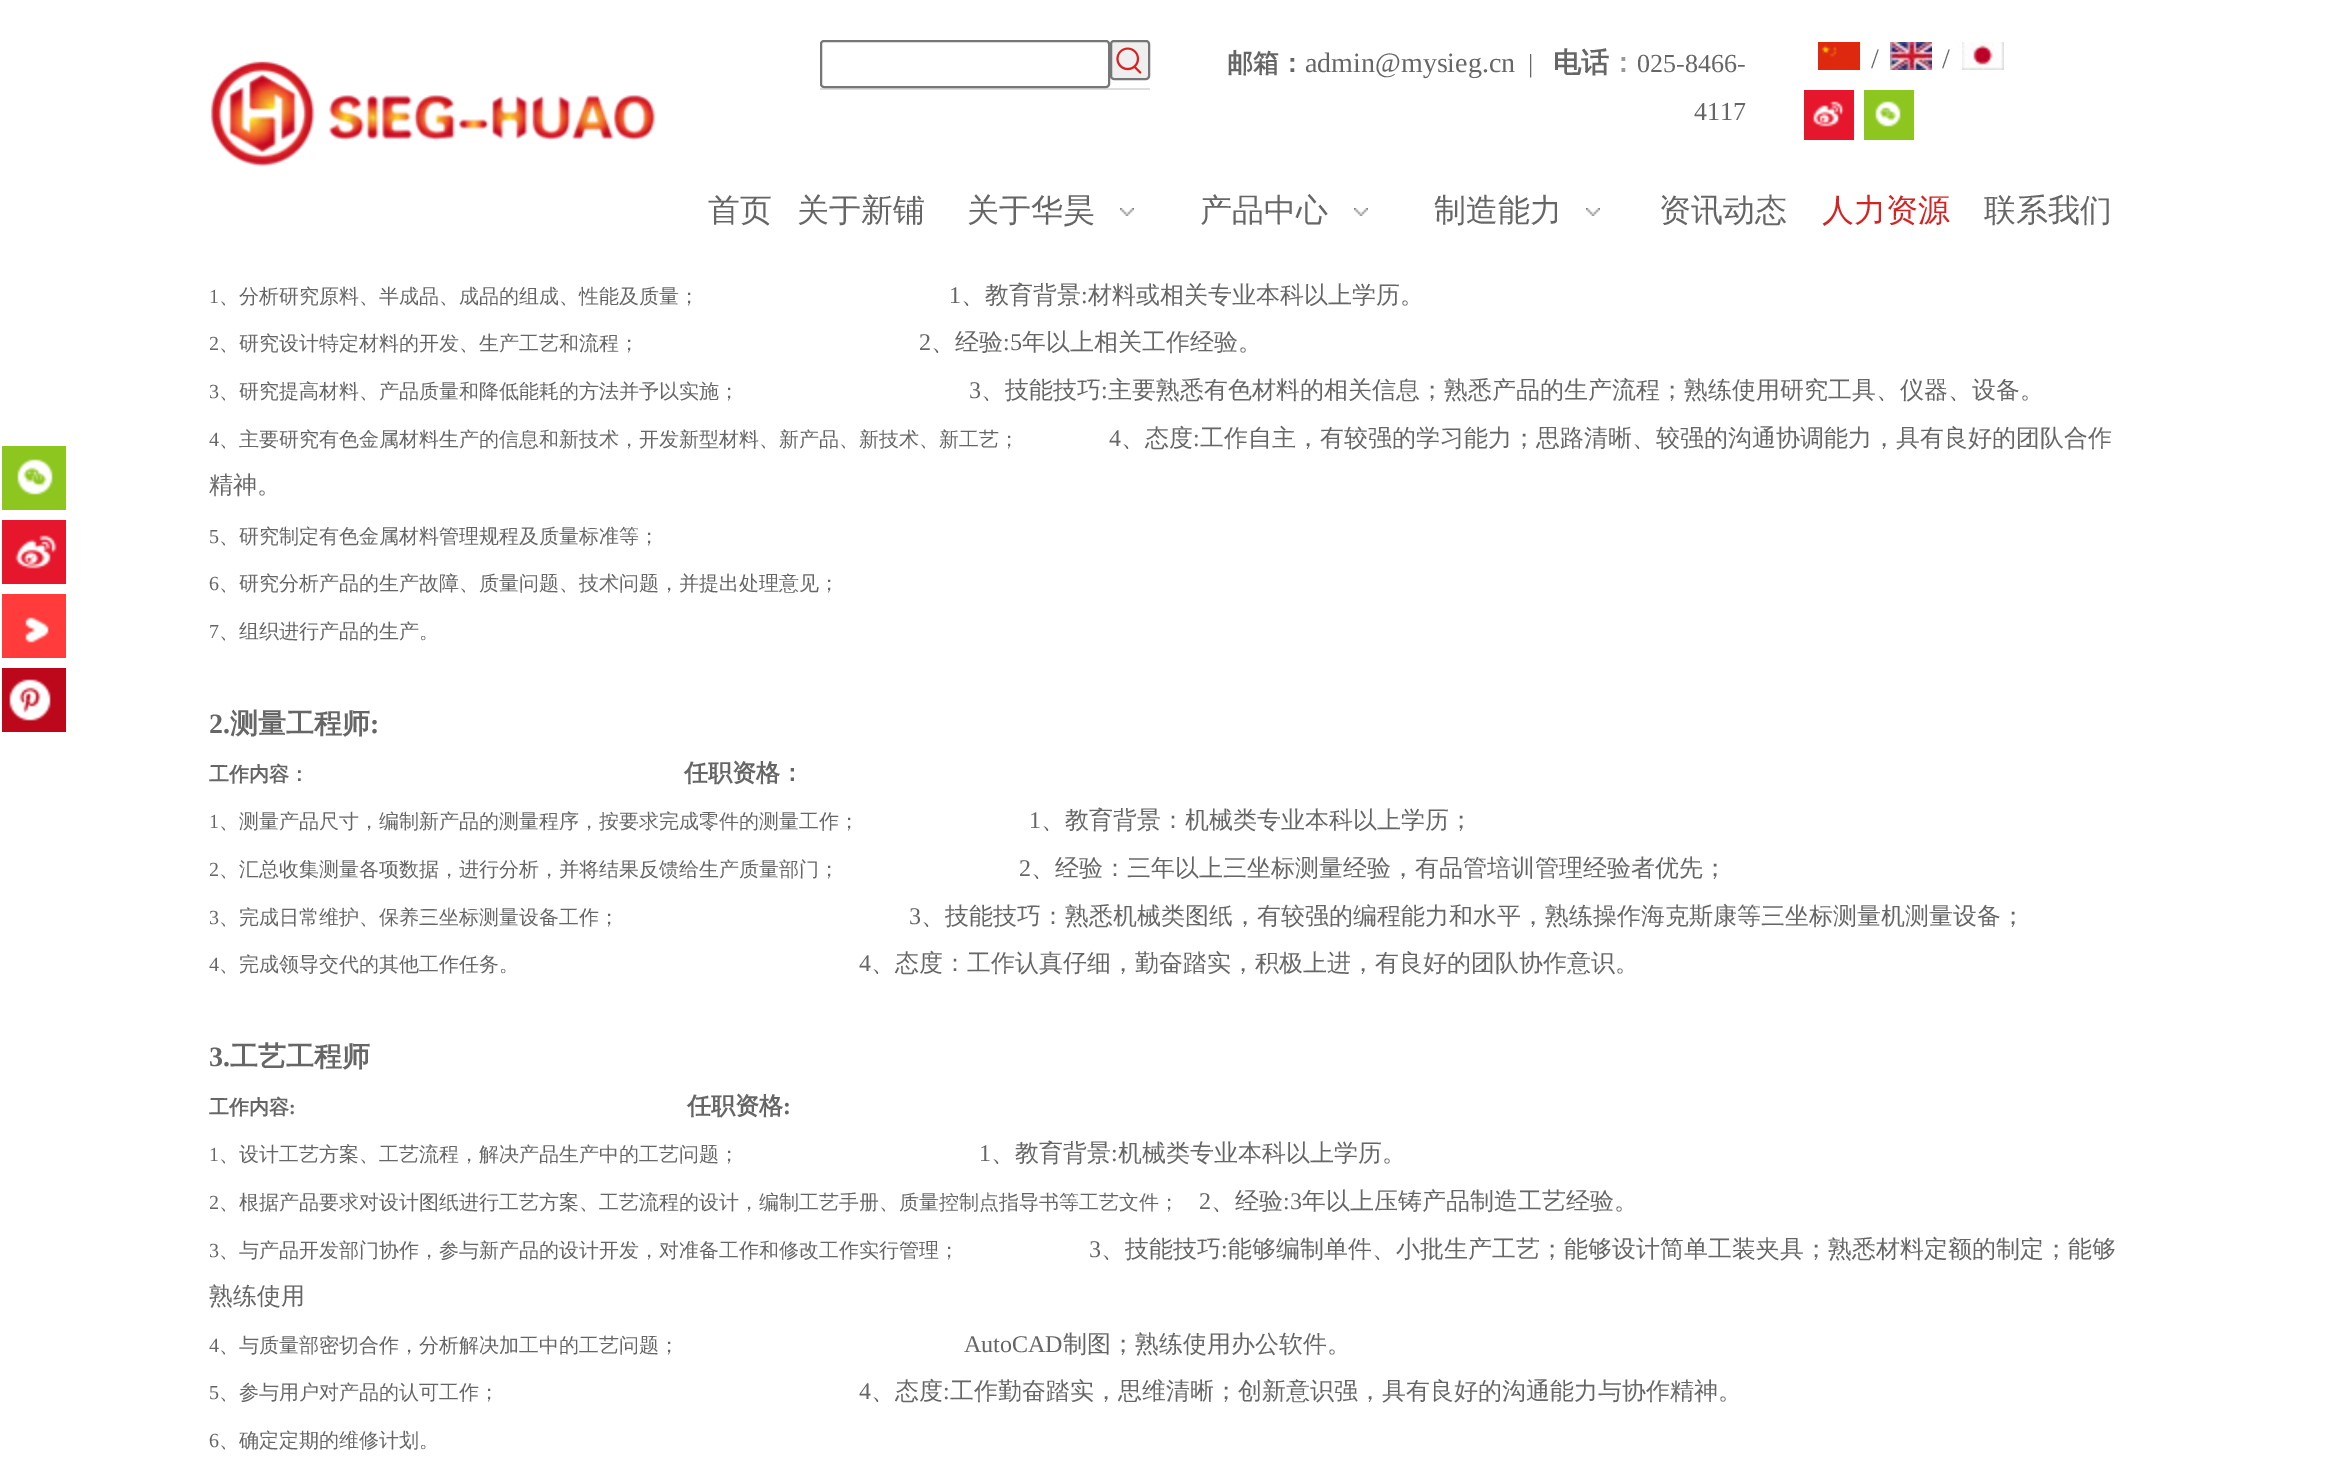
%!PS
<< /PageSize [2338 1477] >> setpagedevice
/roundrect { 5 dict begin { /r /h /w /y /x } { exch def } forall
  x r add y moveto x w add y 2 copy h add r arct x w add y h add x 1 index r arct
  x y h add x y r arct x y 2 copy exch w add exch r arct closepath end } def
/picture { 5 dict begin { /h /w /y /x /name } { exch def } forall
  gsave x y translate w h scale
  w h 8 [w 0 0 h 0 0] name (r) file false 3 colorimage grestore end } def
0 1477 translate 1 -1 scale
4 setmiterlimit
1 setgray
0 0 2338 1477 rectfill
(img1.rgb) 210 61 446 106 picture
0.867 setgray
820 88 330 2 rectfill
0.463 setgray
2 setlinewidth
821 41 288 46 3 roundrect stroke
0.937 setgray
1111 41 38 38 3 roundrect gsave fill grestore
0.463 setgray
stroke
(img2.rgb) 1116 47 26 27 picture
/WenQuanYiZenHei-Bold [26 0 0 -26 0 0] selectfont
0.4 setgray
1227 72 moveto (邮箱：) show
/LiberationSerif-Regular [28 0 0 -28 0 0] selectfont
1305 72 moveto (admin@mysieg.cn) show
/LiberationSerif-Regular [26 0 0 -26 0 0] selectfont
1528 72 moveto (|) show
/WenQuanYiZenHei-Bold [28 0 0 -28 0 0] selectfont
1553 72 moveto (电话) show
0.6 setgray
1609 72 moveto (：) show
/LiberationSerif-Regular [26 0 0 -26 0 0] selectfont
0.4 setgray
1637 72 moveto (025-8466-) show
1694 120 moveto (4117) show
0.553 0.776 0.122 setrgbcolor
2 446 64 64 rectfill
(img3.rgb) 17 459 36 36 picture
0.902 0.086 0.176 setrgbcolor
2 520 64 64 rectfill
(img4.rgb) 15 535 42 34 picture
1 0.231 0.231 setrgbcolor
2 594 64 64 rectfill
(img5.rgb) 25 617 24 26 picture
0.741 0.031 0.11 setrgbcolor
2 668 64 64 rectfill
(img6.rgb) 9 679 42 42 picture
(img7.rgb) 1818 42 42 28 picture
/LiberationSerif-Regular [28 0 0 -28 0 0] selectfont
0.4 setgray
1871 68 moveto (/) show
(img8.rgb) 1890 42 42 28 picture
1942 68 moveto (/) show
(img9.rgb) 1962 42 42 28 picture
0.902 0.086 0.176 setrgbcolor
1804 90 50 50 rectfill
(img10.rgb) 1812 101 32 26 picture
0.553 0.776 0.122 setrgbcolor
1864 90 50 50 rectfill
(img11.rgb) 1875 101 26 26 picture
/WenQuanYiZenHei-Medium [32 0 0 -32 0 0] selectfont
0.4 setgray
708 221 moveto (首页) show
797 221 moveto (关于新铺) show
967 221 moveto (关于华昊) show
(img12.rgb) 1120 208 14 8 picture
1200 221 moveto (产品中心) show
(img12.rgb) 1354 208 14 8 picture
1434 221 moveto (制造能力) show
(img12.rgb) 1586 208 14 8 picture
1659 221 moveto (资讯动态) show
0.835 0.133 0.137 setrgbcolor
1822 221 moveto (人力资源) show
0.4 setgray
1984 221 moveto (联系我们) show
/LiberationSerif-Regular [20 0 0 -20 0 0] selectfont
209 303 moveto (1) show
/WenQuanYiZenHei-Medium [20 0 0 -20 0 0] selectfont
219 303 moveto (、分析研究原料、半成品、成品的组成、性能及质量；) show
/LiberationSerif-Regular [24 0 0 -24 0 0] selectfont
949 303 moveto (1) show
/WenQuanYiZenHei-Medium [24 0 0 -24 0 0] selectfont
961 303 moveto (、教育背景) show
/LiberationSerif-Regular [24 0 0 -24 0 0] selectfont
1081 303 moveto (:) show
/WenQuanYiZenHei-Medium [24 0 0 -24 0 0] selectfont
1088 303 moveto (材料或相关专业本科以上学历。) show
/LiberationSerif-Regular [20 0 0 -20 0 0] selectfont
209 350 moveto (2) show
/WenQuanYiZenHei-Medium [20 0 0 -20 0 0] selectfont
219 350 moveto (、研究设计特定材料的开发、生产工艺和流程；) show
/LiberationSerif-Regular [24 0 0 -24 0 0] selectfont
919 350 moveto (2) show
/WenQuanYiZenHei-Medium [24 0 0 -24 0 0] selectfont
931 350 moveto (、经验) show
/LiberationSerif-Regular [24 0 0 -24 0 0] selectfont
1003 350 moveto (:5) show
/WenQuanYiZenHei-Medium [24 0 0 -24 0 0] selectfont
1022 350 moveto (年以上相关工作经验。) show
/LiberationSerif-Regular [20 0 0 -20 0 0] selectfont
209 398 moveto (3) show
/WenQuanYiZenHei-Medium [20 0 0 -20 0 0] selectfont
219 398 moveto (、研究提高材料、产品质量和降低能耗的方法并予以实施；) show
/LiberationSerif-Regular [24 0 0 -24 0 0] selectfont
969 398 moveto (3) show
/WenQuanYiZenHei-Medium [24 0 0 -24 0 0] selectfont
981 398 moveto (、技能技巧) show
/LiberationSerif-Regular [24 0 0 -24 0 0] selectfont
1101 398 moveto (:) show
/WenQuanYiZenHei-Medium [24 0 0 -24 0 0] selectfont
1108 398 moveto (主要熟悉有色材料的相关信息；熟悉产品的生产流程；熟练使用研究工具、仪器、设备。) show
/LiberationSerif-Regular [20 0 0 -20 0 0] selectfont
209 446 moveto (4) show
/WenQuanYiZenHei-Medium [20 0 0 -20 0 0] selectfont
219 446 moveto (、主要研究有色金属材料生产的信息和新技术，开发新型材料、新产品、新技术、新工艺；) show
/LiberationSerif-Regular [24 0 0 -24 0 0] selectfont
1109 446 moveto (4) show
/WenQuanYiZenHei-Medium [24 0 0 -24 0 0] selectfont
1121 446 moveto (、态度) show
/LiberationSerif-Regular [24 0 0 -24 0 0] selectfont
1193 446 moveto (:) show
/WenQuanYiZenHei-Medium [24 0 0 -24 0 0] selectfont
1200 446 moveto (工作自主，有较强的学习能力；思路清晰、较强的沟通协调能力，具有良好的团队合作) show
209 493 moveto (精神。) show
/LiberationSerif-Regular [20 0 0 -20 0 0] selectfont
209 543 moveto (5) show
/WenQuanYiZenHei-Medium [20 0 0 -20 0 0] selectfont
219 543 moveto (、研究制定有色金属材料管理规程及质量标准等；) show
/LiberationSerif-Regular [20 0 0 -20 0 0] selectfont
209 590 moveto (6) show
/WenQuanYiZenHei-Medium [20 0 0 -20 0 0] selectfont
219 590 moveto (、研究分析产品的生产故障、质量问题、技术问题，并提出处理意见；) show
/LiberationSerif-Regular [20 0 0 -20 0 0] selectfont
209 638 moveto (7) show
/WenQuanYiZenHei-Medium [20 0 0 -20 0 0] selectfont
219 638 moveto (、组织进行产品的生产。) show
/LiberationSerif-Bold [28 0 0 -28 0 0] selectfont
209 733 moveto (2.) show
/WenQuanYiZenHei-Bold [28 0 0 -28 0 0] selectfont
230 733 moveto (测量工程师) show
/LiberationSerif-Bold [28 0 0 -28 0 0] selectfont
370 733 moveto (:) show
/WenQuanYiZenHei-Bold [20 0 0 -20 0 0] selectfont
209 781 moveto (工作内容：) show
/WenQuanYiZenHei-Bold [24 0 0 -24 0 0] selectfont
684 781 moveto (任职资格：) show
/LiberationSerif-Regular [20 0 0 -20 0 0] selectfont
209 828 moveto (1) show
/WenQuanYiZenHei-Medium [20 0 0 -20 0 0] selectfont
219 828 moveto (、测量产品尺寸，编制新产品的测量程序，按要求完成零件的测量工作；) show
/LiberationSerif-Regular [24 0 0 -24 0 0] selectfont
1029 828 moveto (1) show
/WenQuanYiZenHei-Medium [24 0 0 -24 0 0] selectfont
1041 828 moveto (、教育背景：机械类专业本科以上学历；) show
/LiberationSerif-Regular [20 0 0 -20 0 0] selectfont
209 876 moveto (2) show
/WenQuanYiZenHei-Medium [20 0 0 -20 0 0] selectfont
219 876 moveto (、汇总收集测量各项数据，进行分析，并将结果反馈给生产质量部门；) show
/LiberationSerif-Regular [24 0 0 -24 0 0] selectfont
1019 876 moveto (2) show
/WenQuanYiZenHei-Medium [24 0 0 -24 0 0] selectfont
1031 876 moveto (、经验：三年以上三坐标测量经验，有品管培训管理经验者优先；) show
/LiberationSerif-Regular [20 0 0 -20 0 0] selectfont
209 924 moveto (3) show
/WenQuanYiZenHei-Medium [20 0 0 -20 0 0] selectfont
219 924 moveto (、完成日常维护、保养三坐标测量设备工作；) show
/LiberationSerif-Regular [24 0 0 -24 0 0] selectfont
909 924 moveto (3) show
/WenQuanYiZenHei-Medium [24 0 0 -24 0 0] selectfont
921 924 moveto (、技能技巧：熟悉机械类图纸，有较强的编程能力和水平，熟练操作海克斯康等三坐标测量机测量设备；) show
/LiberationSerif-Regular [20 0 0 -20 0 0] selectfont
209 971 moveto (4) show
/WenQuanYiZenHei-Medium [20 0 0 -20 0 0] selectfont
219 971 moveto (、完成领导交代的其他工作任务。) show
/LiberationSerif-Regular [24 0 0 -24 0 0] selectfont
859 971 moveto (4) show
/WenQuanYiZenHei-Medium [24 0 0 -24 0 0] selectfont
871 971 moveto (、态度：工作认真仔细，勤奋踏实，积极上进，有良好的团队协作意识。) show
/LiberationSerif-Bold [28 0 0 -28 0 0] selectfont
209 1066 moveto (3.) show
/WenQuanYiZenHei-Bold [28 0 0 -28 0 0] selectfont
230 1066 moveto (工艺工程师) show
/WenQuanYiZenHei-Bold [20 0 0 -20 0 0] selectfont
209 1114 moveto (工作内容) show
/LiberationSerif-Bold [20 0 0 -20 0 0] selectfont
289 1114 moveto (:) show
/WenQuanYiZenHei-Bold [24 0 0 -24 0 0] selectfont
687 1114 moveto (任职资格) show
/LiberationSerif-Bold [24 0 0 -24 0 0] selectfont
783 1114 moveto (:) show
/LiberationSerif-Regular [20 0 0 -20 0 0] selectfont
209 1161 moveto (1) show
/WenQuanYiZenHei-Medium [20 0 0 -20 0 0] selectfont
219 1161 moveto (、设计工艺方案、工艺流程，解决产品生产中的工艺问题；) show
/LiberationSerif-Regular [24 0 0 -24 0 0] selectfont
979 1161 moveto (1) show
/WenQuanYiZenHei-Medium [24 0 0 -24 0 0] selectfont
991 1161 moveto (、教育背景) show
/LiberationSerif-Regular [24 0 0 -24 0 0] selectfont
1111 1161 moveto (:) show
/WenQuanYiZenHei-Medium [24 0 0 -24 0 0] selectfont
1118 1161 moveto (机械类专业本科以上学历。) show
/LiberationSerif-Regular [20 0 0 -20 0 0] selectfont
209 1209 moveto (2) show
/WenQuanYiZenHei-Medium [20 0 0 -20 0 0] selectfont
219 1209 moveto (、根据产品要求对设计图纸进行工艺方案、工艺流程的设计，编制工艺手册、质量控制点指导书等工艺文件；) show
/LiberationSerif-Regular [24 0 0 -24 0 0] selectfont
1199 1209 moveto (2) show
/WenQuanYiZenHei-Medium [24 0 0 -24 0 0] selectfont
1211 1209 moveto (、经验) show
/LiberationSerif-Regular [24 0 0 -24 0 0] selectfont
1283 1209 moveto (:3) show
/WenQuanYiZenHei-Medium [24 0 0 -24 0 0] selectfont
1302 1209 moveto (年以上压铸产品制造工艺经验。) show
/LiberationSerif-Regular [20 0 0 -20 0 0] selectfont
209 1257 moveto (3) show
/WenQuanYiZenHei-Medium [20 0 0 -20 0 0] selectfont
219 1257 moveto (、与产品开发部门协作，参与新产品的设计开发，对准备工作和修改工作实行管理；) show
/LiberationSerif-Regular [24 0 0 -24 0 0] selectfont
1089 1257 moveto (3) show
/WenQuanYiZenHei-Medium [24 0 0 -24 0 0] selectfont
1101 1257 moveto (、技能技巧) show
/LiberationSerif-Regular [24 0 0 -24 0 0] selectfont
1221 1257 moveto (:) show
/WenQuanYiZenHei-Medium [24 0 0 -24 0 0] selectfont
1228 1257 moveto (能够编制单件、小批生产工艺；能够设计简单工装夹具；熟悉材料定额的制定；能够) show
209 1304 moveto (熟练使用) show
/LiberationSerif-Regular [20 0 0 -20 0 0] selectfont
209 1352 moveto (4) show
/WenQuanYiZenHei-Medium [20 0 0 -20 0 0] selectfont
219 1352 moveto (、与质量部密切合作，分析解决加工中的工艺问题；) show
/LiberationSerif-Regular [24 0 0 -24 0 0] selectfont
964 1352 moveto (AutoCAD) show
/WenQuanYiZenHei-Medium [24 0 0 -24 0 0] selectfont
1063 1352 moveto (制图；熟练使用办公软件。) show
/LiberationSerif-Regular [20 0 0 -20 0 0] selectfont
209 1399 moveto (5) show
/WenQuanYiZenHei-Medium [20 0 0 -20 0 0] selectfont
219 1399 moveto (、参与用户对产品的认可工作；) show
/LiberationSerif-Regular [24 0 0 -24 0 0] selectfont
859 1399 moveto (4) show
/WenQuanYiZenHei-Medium [24 0 0 -24 0 0] selectfont
871 1399 moveto (、态度) show
/LiberationSerif-Regular [24 0 0 -24 0 0] selectfont
943 1399 moveto (:) show
/WenQuanYiZenHei-Medium [24 0 0 -24 0 0] selectfont
950 1399 moveto (工作勤奋踏实，思维清晰；创新意识强，具有良好的沟通能力与协作精神。) show
/LiberationSerif-Regular [20 0 0 -20 0 0] selectfont
209 1447 moveto (6) show
/WenQuanYiZenHei-Medium [20 0 0 -20 0 0] selectfont
219 1447 moveto (、确定定期的维修计划。) show
showpage
